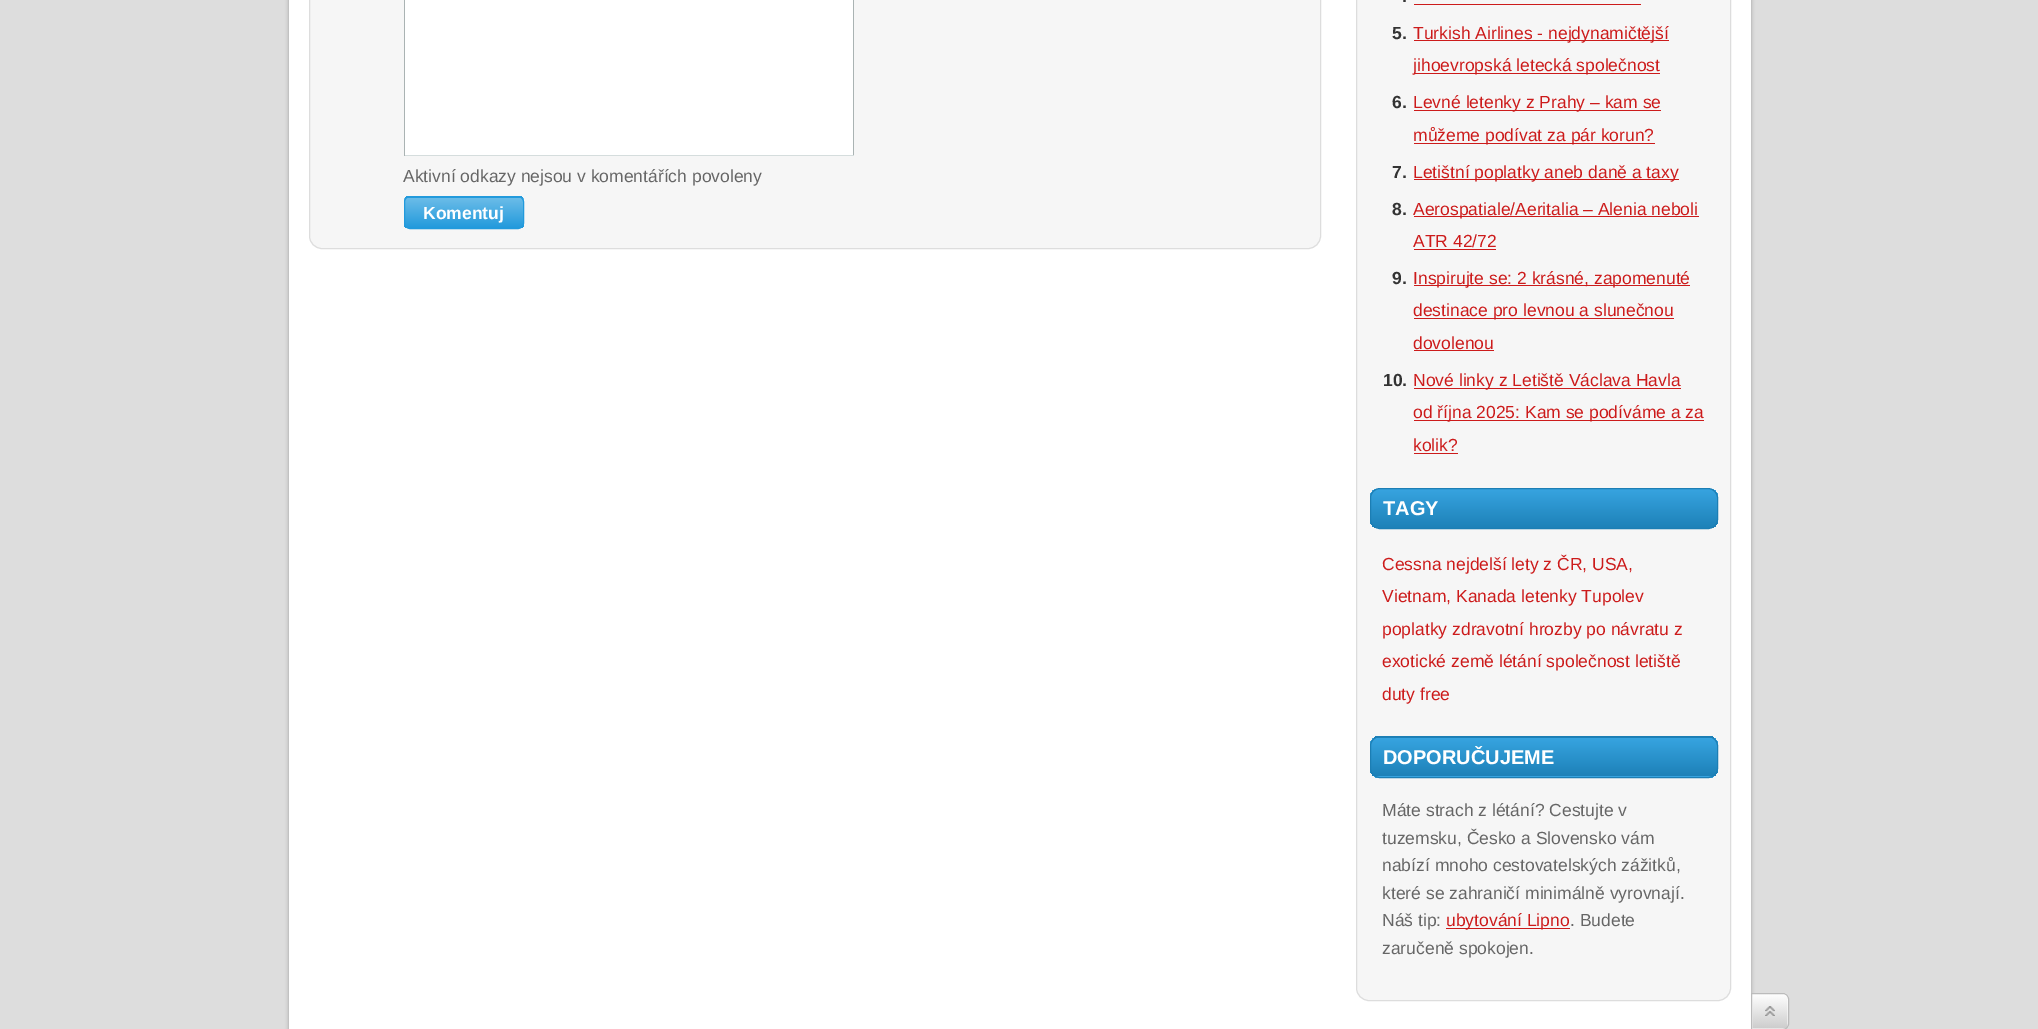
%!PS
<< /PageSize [2038 1029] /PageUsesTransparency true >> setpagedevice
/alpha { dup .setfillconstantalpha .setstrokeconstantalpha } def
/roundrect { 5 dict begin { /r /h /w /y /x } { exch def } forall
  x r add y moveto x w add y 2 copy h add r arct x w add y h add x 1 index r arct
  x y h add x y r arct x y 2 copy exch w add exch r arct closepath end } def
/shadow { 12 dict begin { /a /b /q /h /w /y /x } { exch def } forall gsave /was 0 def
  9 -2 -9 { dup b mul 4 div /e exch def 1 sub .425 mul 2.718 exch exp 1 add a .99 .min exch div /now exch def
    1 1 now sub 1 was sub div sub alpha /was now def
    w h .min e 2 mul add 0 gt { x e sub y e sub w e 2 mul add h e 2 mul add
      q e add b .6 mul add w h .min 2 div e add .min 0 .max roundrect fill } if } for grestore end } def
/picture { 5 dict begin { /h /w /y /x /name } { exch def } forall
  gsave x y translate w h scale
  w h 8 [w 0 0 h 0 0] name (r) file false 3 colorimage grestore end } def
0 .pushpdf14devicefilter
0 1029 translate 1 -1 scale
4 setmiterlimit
0.867 setgray
0 0 2038 1029 rectfill
0 setgray
289 -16 1462 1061 10 2 0.3 shadow
1 setgray
289 0 1462 1029 rectfill
0.965 setgray
309.5 -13.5 1011 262 12.5 roundrect gsave fill grestore
0.867 setgray
stroke
1 setgray
405 0 448 155 rectfill
0.667 0.702 0.702 setrgbcolor
853 0 1 156 rectfill
0.835 0.867 0.867 setrgbcolor
404 155 450 1 rectfill
0.667 0.702 0.702 setrgbcolor
404 0 1 156 rectfill
/LiberationSans-Regular [17.5 0 0 -17.5 0 0] selectfont
0.4 setgray
403 182 moveto (Aktivní odkazy nejsou v komentářích povoleny) show
gsave
404 196 120 33 6 roundrect clip newpath
gsave newpath 404 196 moveto 524 196 lineto 524 198 lineto 404 198 lineto closepath clip newpath
<< /ShadingType 2 /ColorSpace /DeviceRGB /Coords [464 168 464 198] /Extend [true true] /Function << /FunctionType 2 /Domain [0 1] /C0 [0.42 0.737 0.91] /C1 [0.133 0.604 0.863] /N 1 >> >> shfill grestore
gsave newpath 404 198 moveto 524 198 lineto 524 228 lineto 404 228 lineto closepath clip newpath
<< /ShadingType 2 /ColorSpace /DeviceRGB /Coords [464 198 464 228] /Extend [true true] /Function << /FunctionType 2 /Domain [0 1] /C0 [0.42 0.737 0.91] /C1 [0.133 0.604 0.863] /N 1 >> >> shfill grestore
grestore
0.133 0.604 0.863 setrgbcolor
404.5 196.5 119 32 5.5 roundrect stroke
/LiberationSans-Bold [17.5 0 0 -17.5 0 0] selectfont
1 setgray
423 219 moveto (Komentuj) show
0.965 setgray
1356.5 -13.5 374 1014 12.5 roundrect gsave fill grestore
0.867 setgray
stroke
0.2 setgray
1402 2 moveto (.) show
0.8 0.106 0.106 setrgbcolor
1414 4 227 1 rectfill
0.2 setgray
1392 39 moveto (5.) show
0.8 0.106 0.106 setrgbcolor
1414 40 255 1 rectfill
/LiberationSans-Regular [17.5 0 0 -17.5 0 0] selectfont
1413 39 moveto (Turkish Airlines - nejdynamičtější) show
1414 73 246 1 rectfill
1413 71 moveto (jihoevropská letecká společnost) show
/LiberationSans-Bold [17.5 0 0 -17.5 0 0] selectfont
0.2 setgray
1392 108 moveto (6.) show
0.8 0.106 0.106 setrgbcolor
1414 110 247 1 rectfill
/LiberationSans-Regular [17.5 0 0 -17.5 0 0] selectfont
1413 108 moveto (Levné letenky z Prahy – kam se) show
1414 143 241 1 rectfill
1413 141 moveto (můžeme podívat za pár korun?) show
/LiberationSans-Bold [17.5 0 0 -17.5 0 0] selectfont
0.2 setgray
1392 178 moveto (7.) show
0.8 0.106 0.106 setrgbcolor
1414 179 265 1 rectfill
/LiberationSans-Regular [17.5 0 0 -17.5 0 0] selectfont
1413 178 moveto (Letištní poplatky aneb daně a taxy) show
/LiberationSans-Bold [17.5 0 0 -17.5 0 0] selectfont
0.2 setgray
1392 215 moveto (8.) show
0.8 0.106 0.106 setrgbcolor
1414 216 285 1 rectfill
/LiberationSans-Regular [17.5 0 0 -17.5 0 0] selectfont
1413 215 moveto (Aerospatiale/Aeritalia – Alenia neboli) show
1413 247 moveto (ATR 42/72) show
1414 249 82 1 rectfill
/LiberationSans-Bold [17.5 0 0 -17.5 0 0] selectfont
0.2 setgray
1392 284 moveto (9.) show
0.8 0.106 0.106 setrgbcolor
1414 285 276 1 rectfill
/LiberationSans-Regular [17.5 0 0 -17.5 0 0] selectfont
1413 284 moveto (Inspirujte se: 2 krásné, zapomenuté) show
1414 318 260 1 rectfill
1413 316 moveto (destinace pro levnou a slunečnou) show
1413 349 moveto (dovolenou) show
1414 350 80 1 rectfill
/LiberationSans-Bold [17.5 0 0 -17.5 0 0] selectfont
0.2 setgray
1383 386 moveto (10.) show
0.8 0.106 0.106 setrgbcolor
1414 388 267 1 rectfill
/LiberationSans-Regular [17.5 0 0 -17.5 0 0] selectfont
1413 386 moveto (Nové linky z Letiště Václava Havla) show
1414 420 290 1 rectfill
1413 418 moveto (od října 2025: Kam se podíváme a za) show
1413 451 moveto (kolik?) show
1414 453 44 1 rectfill
gsave
1370 488 348 41 10 roundrect clip newpath
gsave newpath 1370 489 moveto 1718 489 lineto 1718 528 lineto 1370 528 lineto closepath clip newpath
<< /ShadingType 2 /ColorSpace /DeviceRGB /Coords [1544 489 1544 528] /Extend [true true] /Function << /FunctionType 2 /Domain [0 1] /C0 [0.216 0.643 0.878] /C1 [0.114 0.506 0.722] /N 1 >> >> shfill grestore
grestore
0.11 0.494 0.706 setrgbcolor
1370.5 488.5 347 40 9.5 roundrect stroke
/LiberationSans-Bold [20 0 0 -20 0 0] selectfont
1 setgray
1383 515 moveto (TAGY) show
/LiberationSans-Regular [17.5 0 0 -17.5 0 0] selectfont
0.8 0.106 0.106 setrgbcolor
1382 570 moveto (Cessna nejdelší lety z ČR, USA,) show
1382 602 moveto (Vietnam, Kanada letenky Tupolev) show
1382 635 moveto (poplatky zdravotní hrozby po návratu z) show
1382 667 moveto (exotické země létání společnost letiště) show
1382 700 moveto (duty free) show
gsave
1370 736 348 42 10 roundrect clip newpath
gsave newpath 1370 736 moveto 1718 736 lineto 1718 738 lineto 1370 738 lineto closepath clip newpath
<< /ShadingType 2 /ColorSpace /DeviceRGB /Coords [1544 699 1544 738] /Extend [true true] /Function << /FunctionType 2 /Domain [0 1] /C0 [0.216 0.643 0.878] /C1 [0.114 0.506 0.722] /N 1 >> >> shfill grestore
gsave newpath 1370 738 moveto 1718 738 lineto 1718 776 lineto 1370 776 lineto closepath clip newpath
<< /ShadingType 2 /ColorSpace /DeviceRGB /Coords [1544 738 1544 776] /Extend [true true] /Function << /FunctionType 2 /Domain [0 1] /C0 [0.216 0.643 0.878] /C1 [0.114 0.506 0.722] /N 1 >> >> shfill grestore
gsave newpath 1370 776 moveto 1718 776 lineto 1718 778 lineto 1370 778 lineto closepath clip newpath
<< /ShadingType 2 /ColorSpace /DeviceRGB /Coords [1544 776 1544 815] /Extend [true true] /Function << /FunctionType 2 /Domain [0 1] /C0 [0.216 0.643 0.878] /C1 [0.114 0.506 0.722] /N 1 >> >> shfill grestore
grestore
0.11 0.494 0.706 setrgbcolor
1370.5 736.5 347 41 9.5 roundrect stroke
/LiberationSans-Bold [20 0 0 -20 0 0] selectfont
1 setgray
1383 764 moveto (DOPORUČUJEME) show
/LiberationSans-Regular [17.5 0 0 -17.5 0 0] selectfont
0.4 setgray
1382 816 moveto (Máte strach z létání? Cestujte v) show
1382 844 moveto (tuzemsku, Česko a Slovensko vám) show
1382 871 moveto (nabízí mnoho cestovatelských zážitků,) show
1382 899 moveto (které se zahraničí minimálně vyrovnají.) show
1382 926 moveto (Náš tip:) show
0.8 0.106 0.106 setrgbcolor
1446 928 124 1 rectfill
1446 926 moveto (ubytování Lipno) show
0.4 setgray
1570 926 moveto (. Budete) show
1382 954 moveto (zaručeně spokojen.) show
1 setgray
newpath 1751 993 moveto 1783 993 lineto 1786.5 993 1789 995.5 1789 999 curveto 1789 1024 lineto 1789 1027.5 1786.5 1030 1783 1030 curveto 1751 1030 lineto closepath fill
(img1.rgb) 1752 993 36 36 picture
0.733 setgray
newpath 1751.5 993.5 moveto 1783 993.5 lineto 1786 993.5 1788.5 996 1788.5 999 curveto 1788.5 1024 lineto 1788.5 1027 1786 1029.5 1783 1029.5 curveto 1751.5 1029.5 lineto closepath stroke
.poppdf14devicefilter showpage
